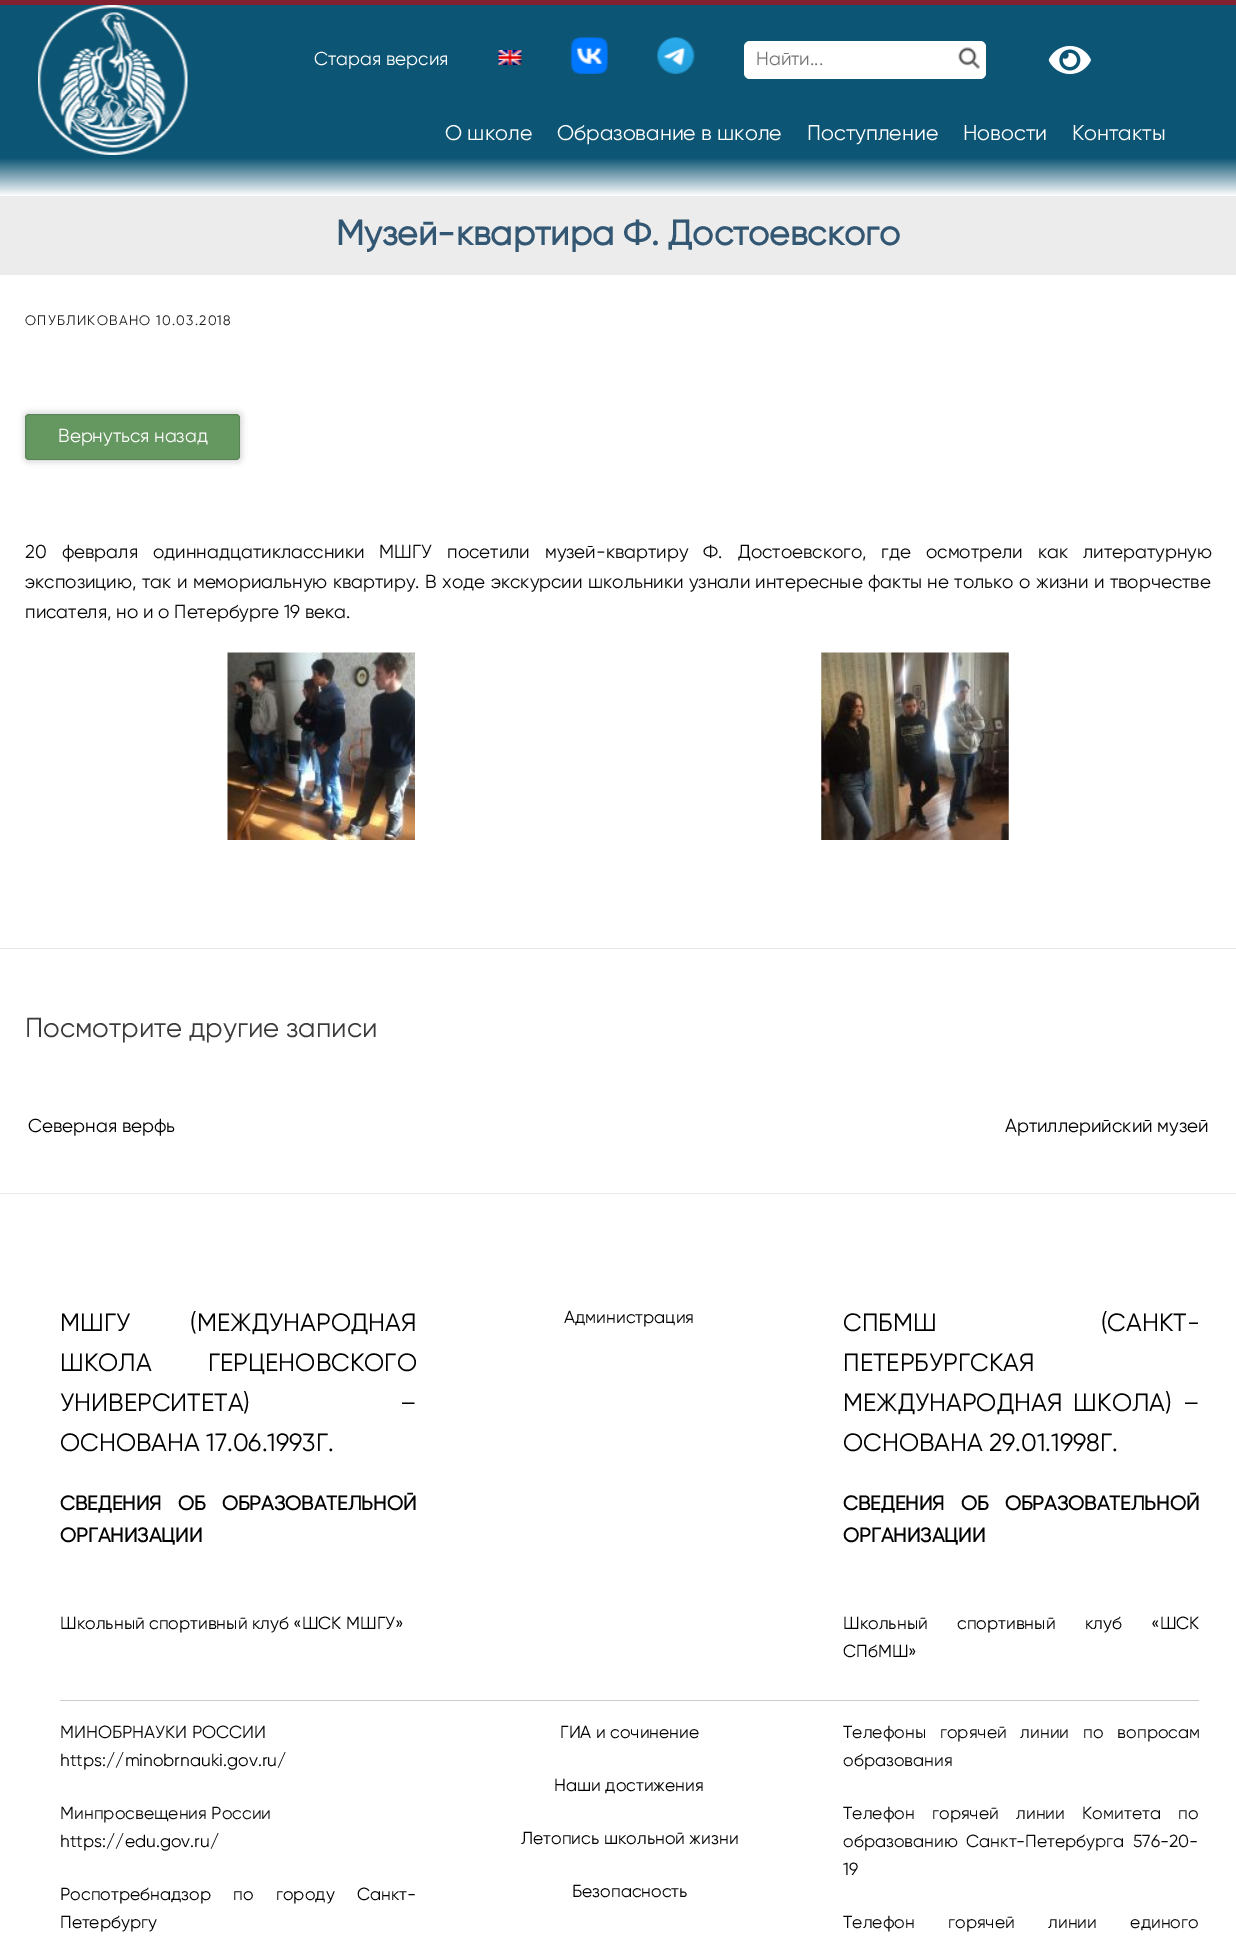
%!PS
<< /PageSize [1236 1951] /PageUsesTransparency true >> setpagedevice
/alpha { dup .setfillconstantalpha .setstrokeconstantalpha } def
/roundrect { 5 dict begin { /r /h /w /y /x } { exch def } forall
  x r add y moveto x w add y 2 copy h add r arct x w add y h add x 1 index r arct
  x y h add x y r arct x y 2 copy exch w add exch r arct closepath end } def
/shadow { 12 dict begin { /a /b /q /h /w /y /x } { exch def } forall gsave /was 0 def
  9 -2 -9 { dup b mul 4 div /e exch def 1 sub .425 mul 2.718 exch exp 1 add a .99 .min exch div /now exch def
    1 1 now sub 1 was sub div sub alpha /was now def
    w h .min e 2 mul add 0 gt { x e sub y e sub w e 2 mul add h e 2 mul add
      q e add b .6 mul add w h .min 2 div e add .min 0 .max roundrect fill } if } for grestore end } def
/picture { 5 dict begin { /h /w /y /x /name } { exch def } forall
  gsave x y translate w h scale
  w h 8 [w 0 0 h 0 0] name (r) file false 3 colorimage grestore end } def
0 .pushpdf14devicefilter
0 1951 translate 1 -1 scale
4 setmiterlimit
1 setgray
0 0 1236 1951 rectfill
gsave newpath 0 5 moveto 1236 5 lineto 1236 196 lineto 0 196 lineto closepath clip newpath
<< /ShadingType 2 /ColorSpace /DeviceRGB /Coords [618 5 618 196] /Extend [true true] /Function << /FunctionType 3 /Domain [0 1] /Functions [<< /FunctionType 2 /Domain [0 1] /C0 [0.051 0.333 0.455] /C1 [0.051 0.333 0.455] /N 1 >> << /FunctionType 2 /Domain [0 1] /C0 [0.051 0.333 0.455] /C1 [1 1 1] /N 1 >>] /Bounds [0.8] /Encode [0 1 0 1] >> >> shfill grestore
0.518 0.129 0.188 setrgbcolor
0 0 1236 5 rectfill
(img1.rgb) 38 5 150 150 picture
/Gilroy-Regular [18.75 0 0 -18.75 0 0] selectfont
1 setgray
314 65 moveto (Старая версия) show
(img2.rgb) 498 50 24 15 picture
(img3.rgb) 570 37 38 37 picture
(img4.rgb) 657 37 38 37 picture
744 41 242 38 6 roundrect fill
0.459 setgray
756 65 moveto (Найти...) show
(img5.rgb) 958 47 22 22 picture
(img6.rgb) 1048 45 43 30 picture
/Gilroy-Regular [21.25 0 0 -21.25 0 0] selectfont
1 setgray
445 140 moveto (О школе) show
557 140 moveto (Образование в школе) show
807 140 moveto (Поступление) show
963 140 moveto (Новости) show
1072 140 moveto (Контакты) show
0.902 setgray
0 948 1236 1 rectfill
0.922 0.925 0.922 setrgbcolor
0 196 1236 79 rectfill
/Gilroy-Bold [35 0 0 -35 0 0] selectfont
0.2 0.337 0.447 setrgbcolor
336 245 moveto (Музей-квартира Ф. Достоевского) show
/Gilroy-Regular [13.75 0 0 -13.75 0 0] selectfont
0.137 0.133 0.133 setrgbcolor
25 325 moveto 1.25 0 (ОПУБЛИКОВАНО) ashow
0.102 setgray
156 325 moveto 1.25 0 (10.03.2018) ashow
23 411 220 52 6 2.5 0.13 shadow
0.396 0.592 0.376 setrgbcolor
25 414 215 46 4 roundrect fill
0.14 alpha
0.102 setgray
25.5 414.5 214 45 3.5 roundrect stroke
/Gilroy-Regular [18.75 0 0 -18.75 0 0] selectfont
1 alpha
1 setgray
58 442 moveto (Вернуться назад) show
0.039 setgray
25 558 moveto 10.25 0 32 (20 февраля одиннадцатиклассники МШГУ посетили музей-квартиру Ф. Достоевского, где осмотрели как литературную) widthshow
25 588 moveto 0.75 0 32 (экспозицию, так и мемориальную квартиру. В ходе экскурсии школьники узнали интересные факты не только о жизни и творчестве) widthshow
25 618 moveto (писателя, но и о Петербурге 19 века.) show
(img7.rgb) 227 652 188 188 picture
(img8.rgb) 821 652 188 188 picture
/Gilroy-Regular [27.5 0 0 -27.5 0 0] selectfont
0.227 setgray
25 1037 moveto (Посмотрите другие записи) show
/Gilroy-Regular [18.75 0 0 -18.75 0 0] selectfont
0 setgray
28 1132 moveto (Северная верфь) show
1005 1132 moveto (Артиллерийский музей) show
0.922 setgray
0 1193 1236 1 rectfill
/Gilroy-Regular [25 0 0 -25 0 0] selectfont
0 setgray
60 1331 moveto 54 0 32 (МШГУ \(МЕЖДУНАРОДНАЯ) widthshow
60 1371 moveto 50 0 32 (ШКОЛА ГЕРЦЕНОВСКОГО) widthshow
60 1411 moveto 144 0 32 (УНИВЕРСИТЕТА\) –) widthshow
60 1451 moveto (ОСНОВАНА 17.06.1993Г.) show
/Gilroy-Bold [20 0 0 -20 0 0] selectfont
60 1510 moveto 11 0 32 (СВЕДЕНИЯ ОБ ОБРАЗОВАТЕЛЬНОЙ) widthshow
60 1542 moveto (ОРГАНИЗАЦИИ) show
/Gilroy-Regular [17.5 0 0 -17.5 0 0] selectfont
60 1629 moveto (Школьный спортивный клуб «ШСК МШГУ») show
564 1323 moveto (Администрация) show
/Gilroy-Regular [25 0 0 -25 0 0] selectfont
843 1331 moveto 158 0 32 (СПБМШ \(САНКТ-) widthshow
843 1371 moveto (ПЕТЕРБУРГСКАЯ) show
843 1411 moveto 5 0 32 (МЕЖДУНАРОДНАЯ ШКОЛА\) –) widthshow
843 1451 moveto (ОСНОВАНА 29.01.1998Г.) show
/Gilroy-Bold [20 0 0 -20 0 0] selectfont
843 1510 moveto 11 0 32 (СВЕДЕНИЯ ОБ ОБРАЗОВАТЕЛЬНОЙ) widthshow
843 1542 moveto (ОРГАНИЗАЦИИ) show
/Gilroy-Regular [17.5 0 0 -17.5 0 0] selectfont
843 1629 moveto 25 0 32 (Школьный спортивный клуб «ШСК) widthshow
843 1657 moveto (СПбМШ») show
0.8 setgray
60 1700 1139 1 rectfill
0.039 setgray
60 1738 moveto (МИНОБРНАУКИ РОССИИ) show
0 setgray
60 1766 moveto (https://minobrnauki.gov.ru/) show
0.039 setgray
60 1819 moveto (Минпросвещения России) show
0 setgray
60 1847 moveto (https://edu.gov.ru/) show
60 1900 moveto 18 0 32 (Роспотребнадзор по городу Санкт-) widthshow
60 1928 moveto (Петербургу) show
560 1738 moveto (ГИА и сочинение) show
554 1791 moveto (Наши достижения) show
521 1844 moveto (Летопись школьной жизни) show
572 1897 moveto (Безопасность) show
0.039 setgray
843 1738 moveto 9.5 0 32 (Телефоны горячей линии по вопросам) widthshow
843 1766 moveto (образования) show
843 1819 moveto 13 0 32 (Телефон горячей линии Комитета по) widthshow
843 1847 moveto 4 0 32 (образованию Санкт-Петербурга 576-20-) widthshow
843 1875 moveto (19) show
843 1928 moveto 29 0 32 (Телефон горячей линии единого) widthshow
.poppdf14devicefilter showpage
